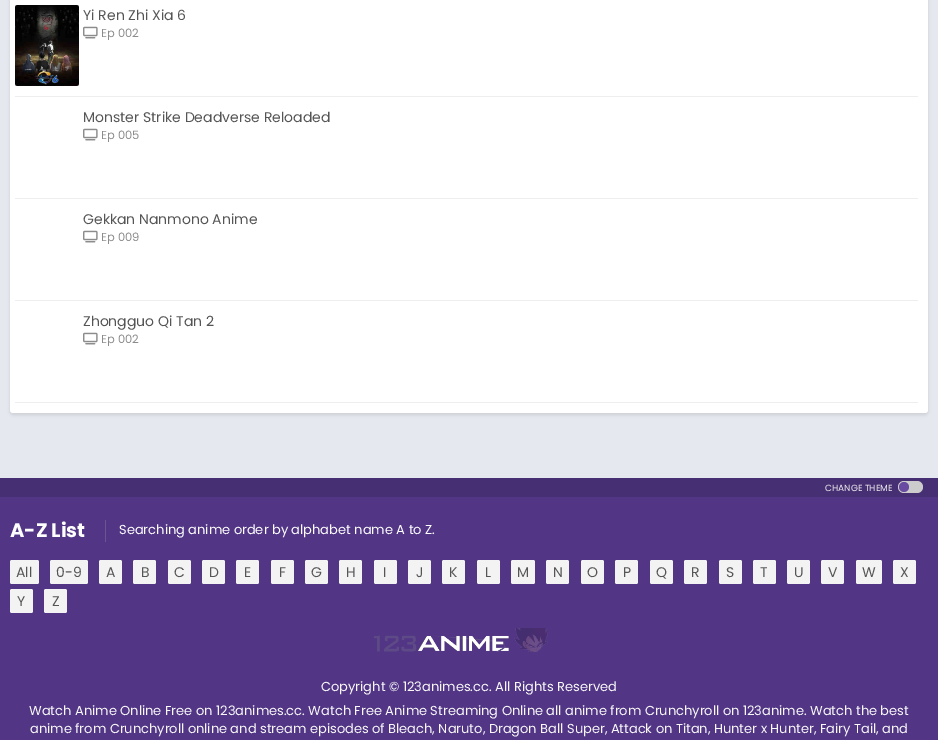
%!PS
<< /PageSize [938 740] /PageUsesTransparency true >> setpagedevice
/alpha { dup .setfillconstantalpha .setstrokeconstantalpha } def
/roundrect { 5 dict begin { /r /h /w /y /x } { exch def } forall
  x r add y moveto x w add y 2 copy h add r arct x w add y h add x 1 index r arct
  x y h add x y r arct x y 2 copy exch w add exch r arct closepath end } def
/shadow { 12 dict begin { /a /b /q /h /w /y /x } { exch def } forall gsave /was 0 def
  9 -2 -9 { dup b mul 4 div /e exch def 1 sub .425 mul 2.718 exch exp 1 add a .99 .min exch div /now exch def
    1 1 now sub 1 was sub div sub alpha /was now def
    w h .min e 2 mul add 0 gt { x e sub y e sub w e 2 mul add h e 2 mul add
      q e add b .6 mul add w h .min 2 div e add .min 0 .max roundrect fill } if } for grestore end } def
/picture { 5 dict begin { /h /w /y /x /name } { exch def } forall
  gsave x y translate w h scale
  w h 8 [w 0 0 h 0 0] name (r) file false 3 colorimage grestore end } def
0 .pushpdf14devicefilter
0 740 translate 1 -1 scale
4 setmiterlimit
0.902 0.91 0.941 setrgbcolor
0 0 938 740 rectfill
0 setgray
10 -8 918 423 3 1.5 0.1 shadow
1 setgray
10 -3 918 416 3 roundrect fill
0.933 setgray
15 96 903 1 rectfill
(img1.rgb) 15 5 64 81 picture
/Poppins-Regular [14 0 0 -14 0 0] selectfont
0.333 setgray
83 20 moveto (Yi Ren Zhi Xia 6) show
(img2.rgb) 83 26 15 13 picture
/Poppins-Regular [11.5 0 0 -11.5 0 0] selectfont
0.549 setgray
101 37 moveto (Ep 002) show
0.933 setgray
15 198 903 1 rectfill
/Poppins-Regular [14 0 0 -14 0 0] selectfont
0.333 setgray
83 122 moveto (Monster Strike Deadverse Reloaded) show
(img2.rgb) 83 128 15 13 picture
/Poppins-Regular [11.5 0 0 -11.5 0 0] selectfont
0.549 setgray
101 139 moveto (Ep 005) show
0.933 setgray
15 300 903 1 rectfill
/Poppins-Regular [14 0 0 -14 0 0] selectfont
0.333 setgray
83 224 moveto (Gekkan Nanmono Anime) show
(img2.rgb) 83 230 15 13 picture
/Poppins-Regular [11.5 0 0 -11.5 0 0] selectfont
0.549 setgray
101 241 moveto (Ep 009) show
0.933 setgray
15 402 903 1 rectfill
/Poppins-Regular [14 0 0 -14 0 0] selectfont
0.333 setgray
83 326 moveto (Zhongguo Qi Tan 2) show
(img2.rgb) 83 332 15 13 picture
/Poppins-Regular [11.5 0 0 -11.5 0 0] selectfont
0.549 setgray
101 343 moveto (Ep 002) show
0.322 0.212 0.522 setrgbcolor
0 497 938 243 rectfill
0.278 0.184 0.451 setrgbcolor
0 478 938 19 rectfill
/Poppins-Regular [9 0 0 -9 0 0] selectfont
0.933 setgray
825 491 moveto (CHANGE THEME) show
0.8 setgray
898 481 25 12 6 roundrect fill
0.412 0.294 0.631 setrgbcolor
newpath 904 487 5 0 360 arc closepath fill
/Poppins-Bold [19.5 0 0 -19.5 0 0] selectfont
0.996 setgray
10 537 moveto (A-Z List) show
0.416 0.329 0.576 setrgbcolor
105 520 1 22 rectfill
/Poppins-Regular [13 0 0 -13 0 0] selectfont
0.996 setgray
119 534 moveto (Searching anime order by alphabet name A to Z.) show
0.953 setgray
10 560 29 24 2 roundrect fill
/Poppins-Regular [14 0 0 -14 0 0] selectfont
0.333 setgray
16 577 moveto (All) show
0.953 setgray
50 560 38 24 2 roundrect fill
0.333 setgray
56 577 moveto (0-9) show
0.953 setgray
99 560 23 24 2 roundrect fill
0.333 setgray
106 577 moveto (A) show
0.953 setgray
133 560 23 24 2 roundrect fill
0.333 setgray
141 577 moveto (B) show
0.953 setgray
168 560 23 24 2 roundrect fill
0.333 setgray
174 577 moveto (C) show
0.953 setgray
202 560 23 24 2 roundrect fill
0.333 setgray
209 577 moveto (D) show
0.953 setgray
236 560 23 24 2 roundrect fill
0.333 setgray
244 577 moveto (E) show
0.953 setgray
271 560 23 24 2 roundrect fill
0.333 setgray
279 577 moveto (F) show
0.953 setgray
305 560 23 24 2 roundrect fill
0.333 setgray
311 577 moveto (G) show
0.953 setgray
339 560 23 24 2 roundrect fill
0.333 setgray
346 577 moveto (H) show
0.953 setgray
374 560 23 24 2 roundrect fill
0.333 setgray
383 577 moveto (I) show
0.953 setgray
408 560 23 24 2 roundrect fill
0.333 setgray
416 577 moveto (J) show
0.953 setgray
442 560 23 24 2 roundrect fill
0.333 setgray
449 577 moveto (K) show
0.953 setgray
477 560 23 24 2 roundrect fill
0.333 setgray
485 577 moveto (L) show
0.953 setgray
511 560 24 24 2 roundrect fill
0.333 setgray
517 577 moveto (M) show
0.953 setgray
546 560 23 24 2 roundrect fill
0.333 setgray
553 577 moveto (N) show
0.953 setgray
581 560 23 24 2 roundrect fill
0.333 setgray
587 577 moveto (O) show
0.953 setgray
615 560 23 24 2 roundrect fill
0.333 setgray
623 577 moveto (P) show
0.953 setgray
650 560 23 24 2 roundrect fill
0.333 setgray
656 577 moveto (Q) show
0.953 setgray
684 560 23 24 2 roundrect fill
0.333 setgray
691 577 moveto (R) show
0.953 setgray
719 560 23 24 2 roundrect fill
0.333 setgray
726 577 moveto (S) show
0.953 setgray
753 560 23 24 2 roundrect fill
0.333 setgray
760 577 moveto (T) show
0.953 setgray
787 560 23 24 2 roundrect fill
0.333 setgray
794 577 moveto (U) show
0.953 setgray
821 560 23 24 2 roundrect fill
0.333 setgray
828 577 moveto (V) show
0.953 setgray
856 560 26 24 2 roundrect fill
0.333 setgray
862 577 moveto (W) show
0.953 setgray
893 560 23 24 2 roundrect fill
0.333 setgray
900 577 moveto (X) show
0.953 setgray
10 589 23 24 2 roundrect fill
0.333 setgray
17 606 moveto (Y) show
0.953 setgray
44 589 23 24 2 roundrect fill
0.333 setgray
52 606 moveto (Z) show
(img3.rgb) 374 628 174 24 picture
/Poppins-Regular [13 0 0 -13 0 0] selectfont
0.973 setgray
321 691 moveto (Copyright © 123animes.cc. All Rights Reserved) show
29 715 moveto (Watch Anime Online Free on 123animes.cc. Watch Free Anime Streaming Online all anime from Crunchyroll on 123anime. Watch the best) show
30 733 moveto (anime from Crunchyroll online and stream episodes of Bleach, Naruto, Dragon Ball Super, Attack on Titan, Hunter x Hunter, Fairy Tail, and) show
.poppdf14devicefilter showpage
